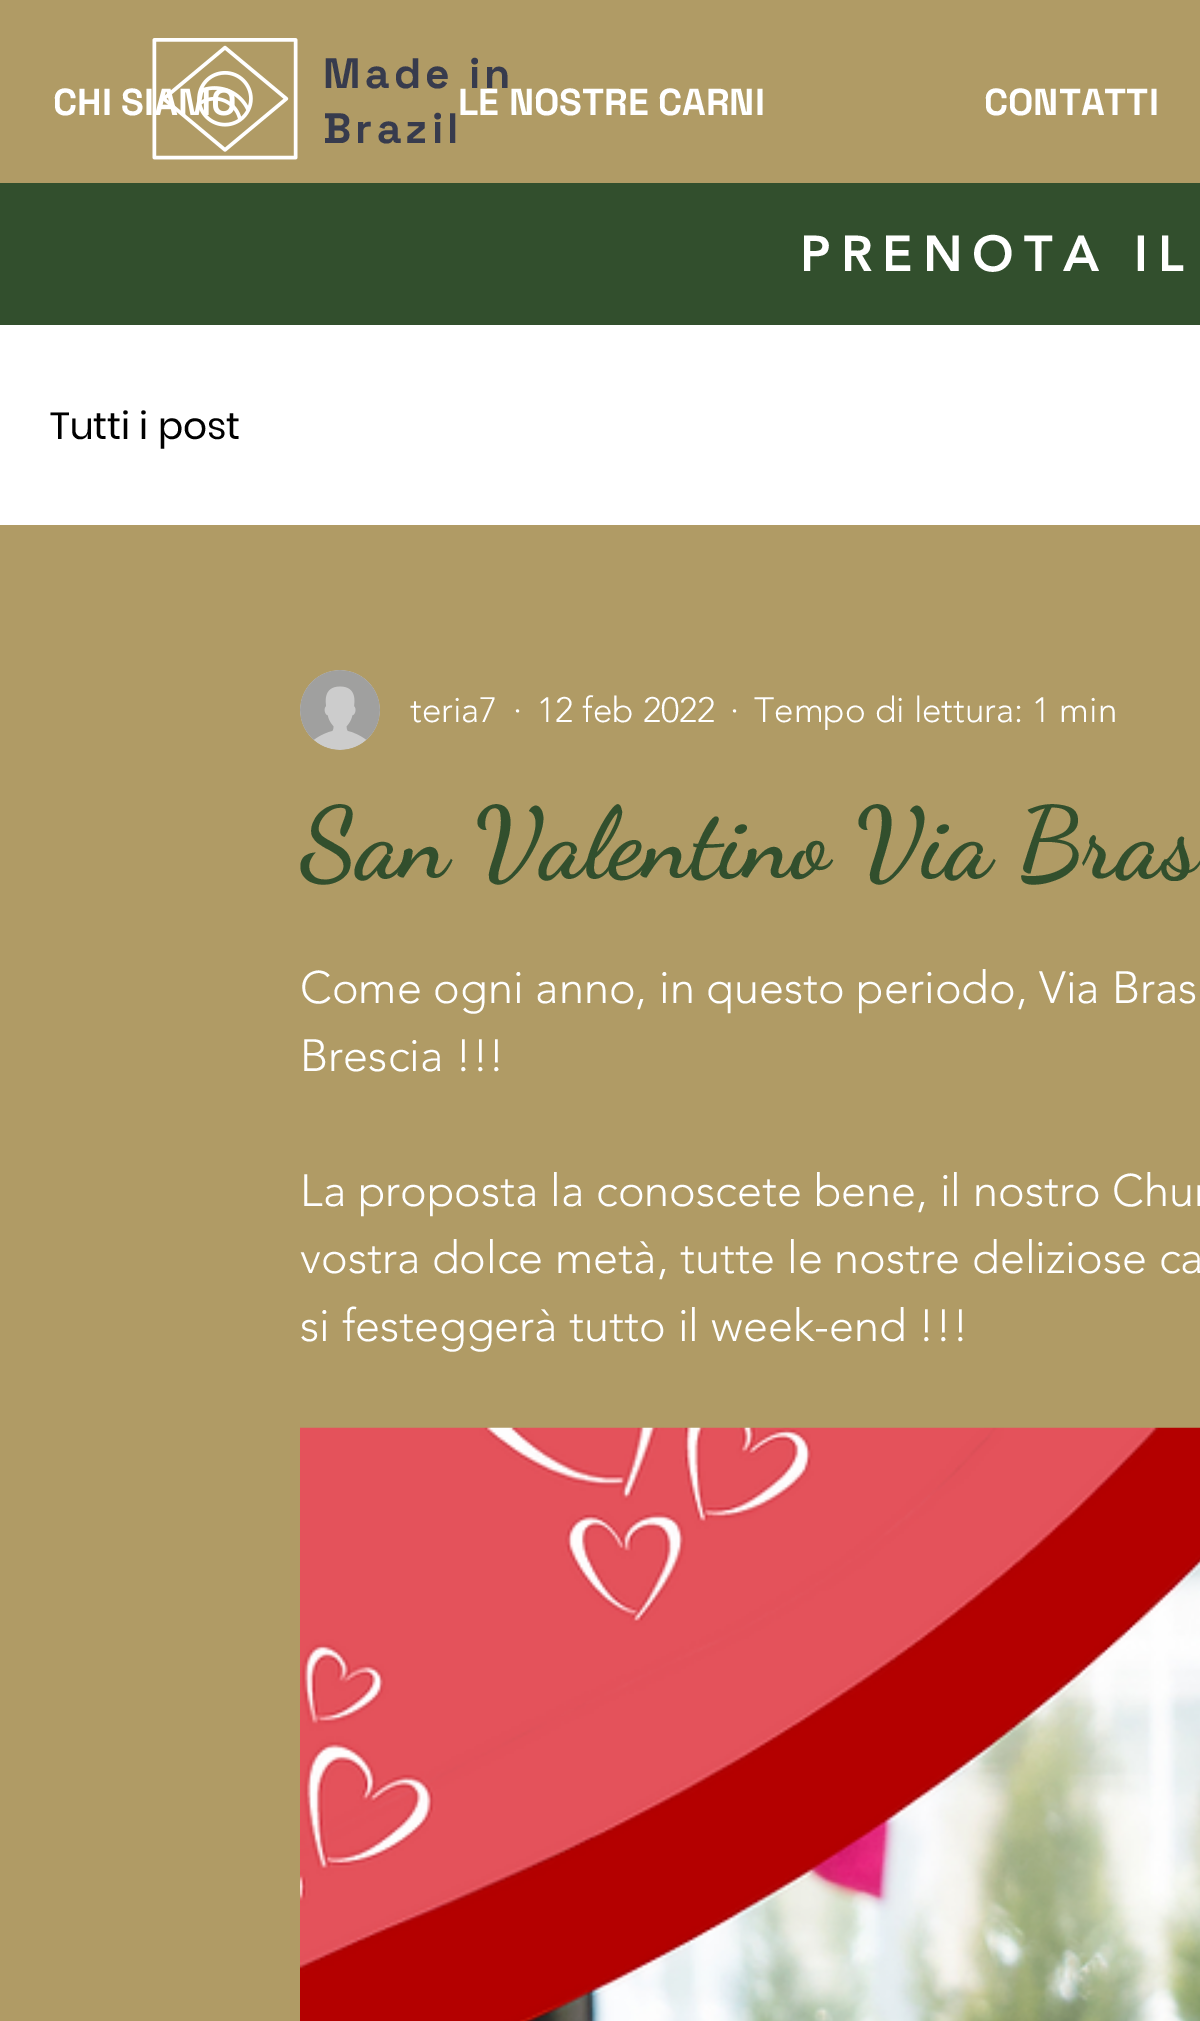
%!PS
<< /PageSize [1200 2021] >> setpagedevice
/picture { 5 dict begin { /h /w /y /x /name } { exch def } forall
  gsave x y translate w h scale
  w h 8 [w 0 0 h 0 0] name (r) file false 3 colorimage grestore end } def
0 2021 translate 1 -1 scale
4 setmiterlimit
0.69 0.608 0.396 setrgbcolor
0 0 1200 2021 rectfill
/SpaceGrotesk-Bold [37.5 0 0 -37.5 0 0] selectfont
1 setgray
53 115 moveto (CHI SIAMO) show
(img1.rgb) 152 38 146 122 picture
/SpaceGrotesk-Bold [42.5 0 0 -42.5 0 0] selectfont
0.216 0.231 0.302 setrgbcolor
323 88 moveto 4.25 0 (Made in) ashow
323 143 moveto 4.25 0 (Brazil) ashow
/SpaceGrotesk-Bold [37.5 0 0 -37.5 0 0] selectfont
1 setgray
458 115 moveto (LE NOSTRE CARNI) show
984 115 moveto (CONTATTI) show
0.196 0.31 0.176 setrgbcolor
0 183 1200 142 rectfill
/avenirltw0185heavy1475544-Black [50 0 0 -50 0 0] selectfont
1 setgray
800 271 moveto 10 0 (PRENOTA IL) ashow
0 325 1200 200 rectfill
/Poppins-Regular [37.5 0 0 -37.5 0 0] selectfont
0 setgray
50 439 moveto (Tutti i post) show
(img2.rgb) 300 670 80 80 picture
/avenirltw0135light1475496-Light [35 0 0 -35 0 0] selectfont
1 setgray
410 722 moveto (teria7) show
513 722 moveto (·) show
537 722 moveto (12 feb 2022) show
730 722 moveto (·) show
754 722 moveto (Tempo di lettura: 1 min) show
/DancingScript-Bold [100 0 0 -100 0 0] selectfont
0.196 0.31 0.176 setrgbcolor
300 876 moveto (San Valentino Via Bras) show
/avenirltw0135light1475496-Light [45 0 0 -45 0 0] selectfont
1 setgray
300 1003 moveto (Come ogni anno, in questo periodo, Via Bras) show
300 1071 moveto (Brescia !!!) show
300 1206 moveto (La proposta la conoscete bene, il nostro Chur) show
300 1273 moveto (vostra dolce metà, tutte le nostre deliziose ca) show
300 1341 moveto (si festeggerà tutto il week-end !!!) show
(img3.rgb) 300 1427 900 594 picture
showpage
